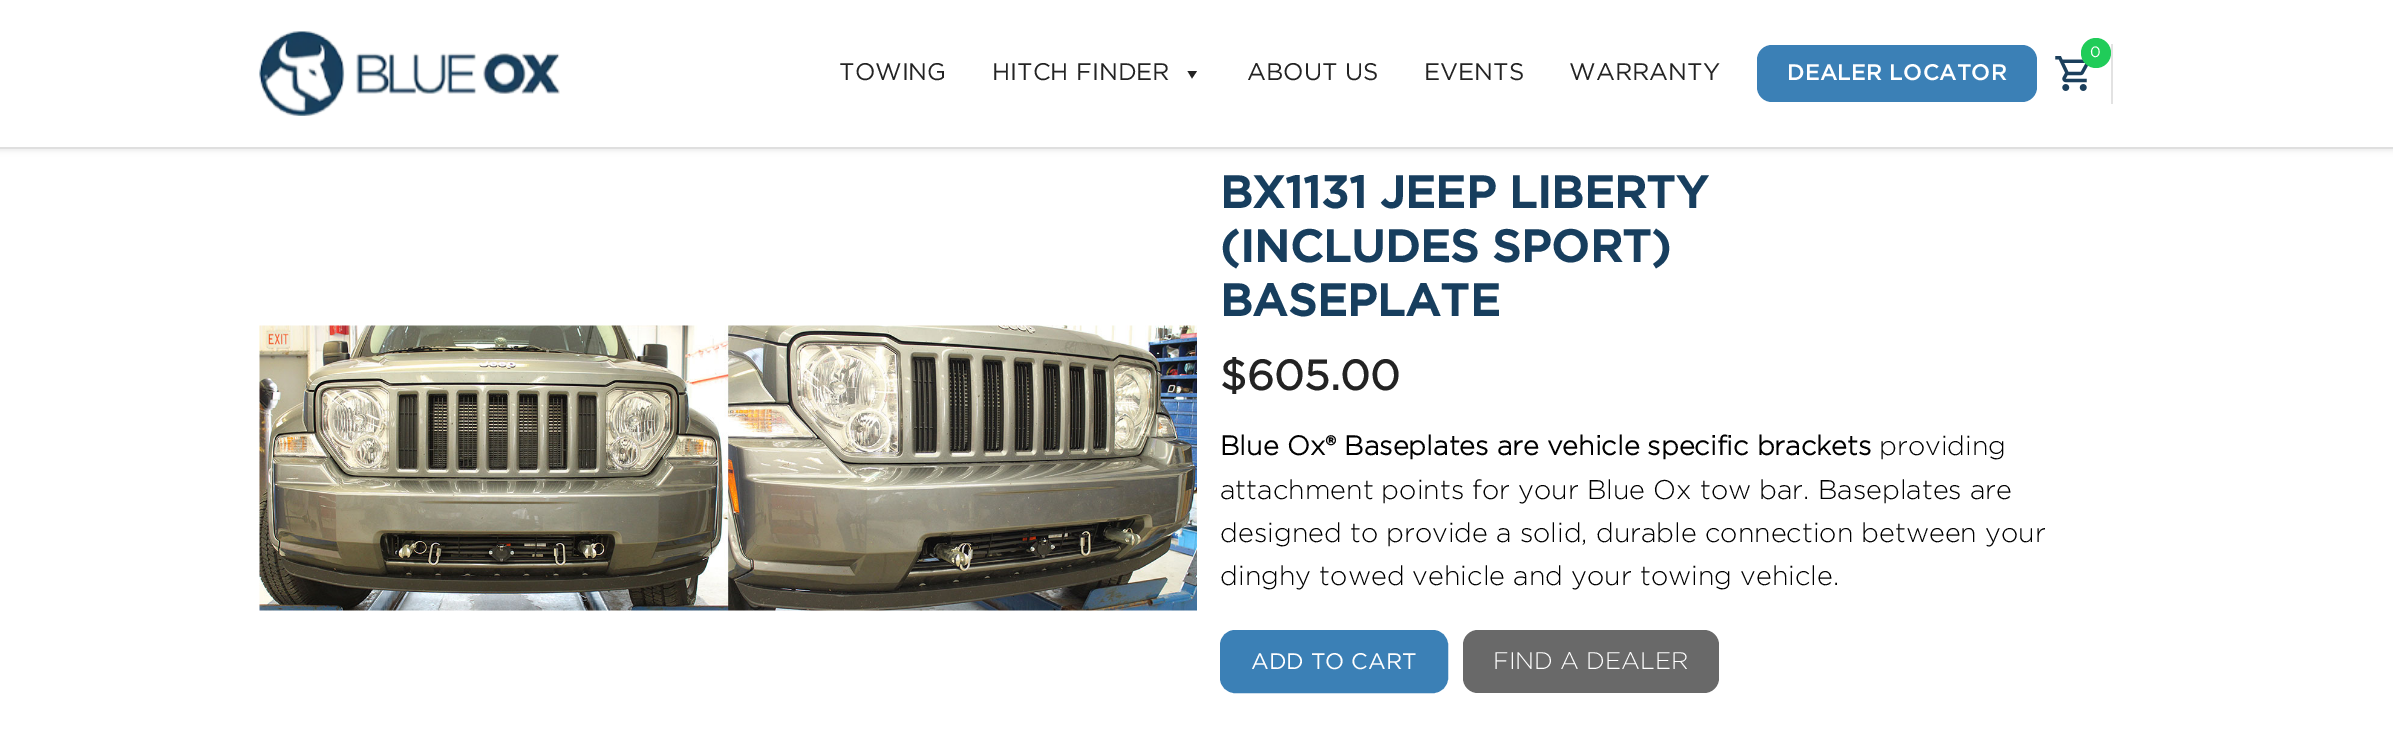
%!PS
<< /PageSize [2393 749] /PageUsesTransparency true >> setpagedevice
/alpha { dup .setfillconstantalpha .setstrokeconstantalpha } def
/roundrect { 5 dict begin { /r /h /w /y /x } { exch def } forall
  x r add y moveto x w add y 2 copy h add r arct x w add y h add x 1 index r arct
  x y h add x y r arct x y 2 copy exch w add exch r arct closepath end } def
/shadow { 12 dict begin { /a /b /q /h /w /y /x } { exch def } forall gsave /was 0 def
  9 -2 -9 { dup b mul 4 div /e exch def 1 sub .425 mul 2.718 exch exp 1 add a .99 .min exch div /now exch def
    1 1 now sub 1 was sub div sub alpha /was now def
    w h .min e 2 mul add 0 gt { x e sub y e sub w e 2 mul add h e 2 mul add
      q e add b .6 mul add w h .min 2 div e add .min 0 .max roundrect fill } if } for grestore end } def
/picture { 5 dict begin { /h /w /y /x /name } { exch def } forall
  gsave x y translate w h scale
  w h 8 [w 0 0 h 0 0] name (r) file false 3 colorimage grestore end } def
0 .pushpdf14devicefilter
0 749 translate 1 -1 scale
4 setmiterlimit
1 setgray
0 0 2393 749 rectfill
0 setgray
-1 -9 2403 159 0 3 0.1 shadow
1 setgray
0 0 2393 147 rectfill
0.875 setgray
0 147 2393 2 rectfill
(img1.rgb) 259 31 301 85 picture
0.886 setgray
2111 44 2 60 rectfill
(img2.rgb) 2055 56 34 35 picture
0.125 0.8 0.349 setrgbcolor
newpath 2096 53 15 0 360 arc closepath fill
/Gotham-Regular [15 0 0 -15 0 0] selectfont
1 setgray
2090 57 moveto (0) show
/Gotham-Regular [24 0 0 -24 0 0] selectfont
0.137 setgray
839 80 moveto (TOWING) show
992 80 moveto (HITCH FINDER) show
newpath 1197 71 moveto 1192 78.5 lineto 1187.5 71 lineto closepath fill
1247 80 moveto (ABOUT US) show
1424 80 moveto (EVENTS) show
1569 80 moveto (WARRANTY) show
0.231 0.502 0.714 setrgbcolor
1757 45 280 57 15 roundrect fill
/Gotham-Medium [22.5 0 0 -22.5 0 0] selectfont
1 setgray
1787 80 moveto (DEALER LOCATOR) show
(img3.rgb) 259 325 938 286 picture
/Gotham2-Bold [45 0 0 -45 0 0] selectfont
0.09 0.243 0.369 setrgbcolor
1220 208 moveto (BX1131 JEEP LIBERTY) show
1220 262 moveto (\(INCLUDES SPORT\)) show
1220 316 moveto (BASEPLATE) show
/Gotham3-Bold [42 0 0 -42 0 0] selectfont
0.137 setgray
1220 390 moveto ($605.00) show
/Gotham-Bold [27 0 0 -27 0 0] selectfont
0 setgray
1220 455 moveto (Blue Ox® Baseplates are vehicle specific brackets) show
/Gotham-Light [27 0 0 -27 0 0] selectfont
1879 455 moveto (providing) show
1220 499 moveto (attachment points for your Blue Ox tow bar. Baseplates are) show
1220 542 moveto (designed to provide a solid, durable connection between your) show
1220 585 moveto (dinghy towed vehicle and your towing vehicle.) show
0.231 0.502 0.714 setrgbcolor
1221 631 226 61 14 roundrect gsave fill grestore
2 setlinewidth
stroke
/Gotham-Regular [22.5 0 0 -22.5 0 0] selectfont
1 setgray
1251 669 moveto (ADD TO CART) show
0.412 setgray
1463 630 256 63 15 roundrect fill
/Gotham-Light [24 0 0 -24 0 0] selectfont
1 setgray
1493 669 moveto (FIND A DEALER) show
.poppdf14devicefilter showpage
